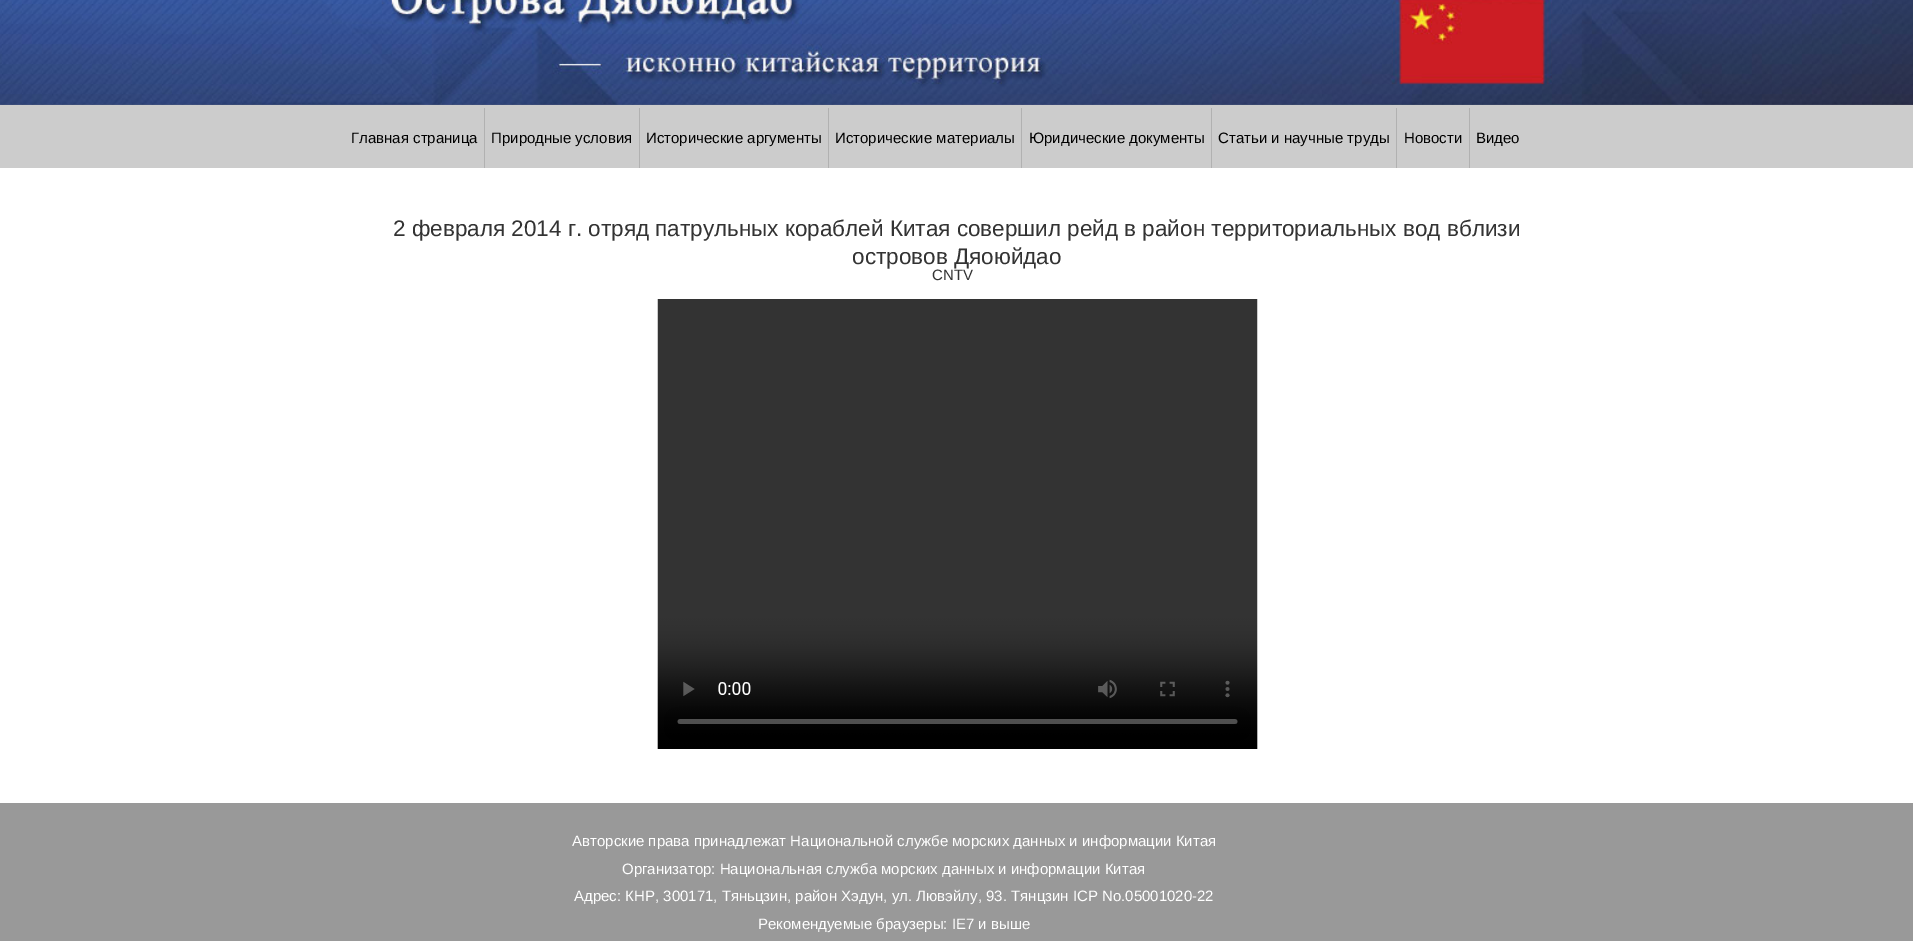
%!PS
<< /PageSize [1913 941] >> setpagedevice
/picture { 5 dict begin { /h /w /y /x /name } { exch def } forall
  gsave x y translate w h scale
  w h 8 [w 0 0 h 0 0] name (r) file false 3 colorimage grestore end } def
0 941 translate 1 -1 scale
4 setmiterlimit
1 setgray
0 0 1913 941 rectfill
(img1.rgb) 0 0 1913 105 picture
0.8 setgray
0 105 1913 63 rectfill
0.694 setgray
484 108 1 60 rectfill
/LiberationSans-Regular [15 0 0 -15 0 0] selectfont
0 setgray
351 143 moveto (Главная страница) show
0.694 setgray
639 108 1 60 rectfill
0 setgray
491 143 moveto (Природные условия) show
0.694 setgray
828 108 1 60 rectfill
0 setgray
646 143 moveto (Исторические аргументы) show
0.694 setgray
1021 108 1 60 rectfill
0 setgray
835 143 moveto (Исторические материалы) show
0.694 setgray
1211 108 1 60 rectfill
0 setgray
1029 143 moveto (Юридические документы) show
0.694 setgray
1396 108 1 60 rectfill
0 setgray
1218 143 moveto (Статьи и научные труды) show
0.694 setgray
1469 108 1 60 rectfill
0 setgray
1404 143 moveto (Новости) show
1476 143 moveto (Видео) show
/LiberationSans-Regular [22.5 0 0 -22.5 0 0] selectfont
0.2 setgray
393 236 moveto (2 февраля 2014 г. отряд патрульных кораблей Китая совершил рейд в район территориальных вод вблизи) show
852 264 moveto (островов Дяоюйдао) show
/LiberationSans-Regular [15 0 0 -15 0 0] selectfont
932 280 moveto (CNTV) show
(img2.rgb) 657 299 601 450 picture
0.6 setgray
0 803 1913 138 rectfill
1 setgray
572 846 moveto (Авторские права принадлежат Национальной службе морских данных и информации Китая) show
622 874 moveto (Организатор: Национальная служба морских данных и информации Китая) show
574 901 moveto (Адрес: КНР, 300171, Тяньцзин, район Хэдун, ул. Лювэйлу, 93. Тянцзин ICP No.05001020-22) show
758 929 moveto (Рекомендуемые браузеры: IE7 и выше) show
showpage
